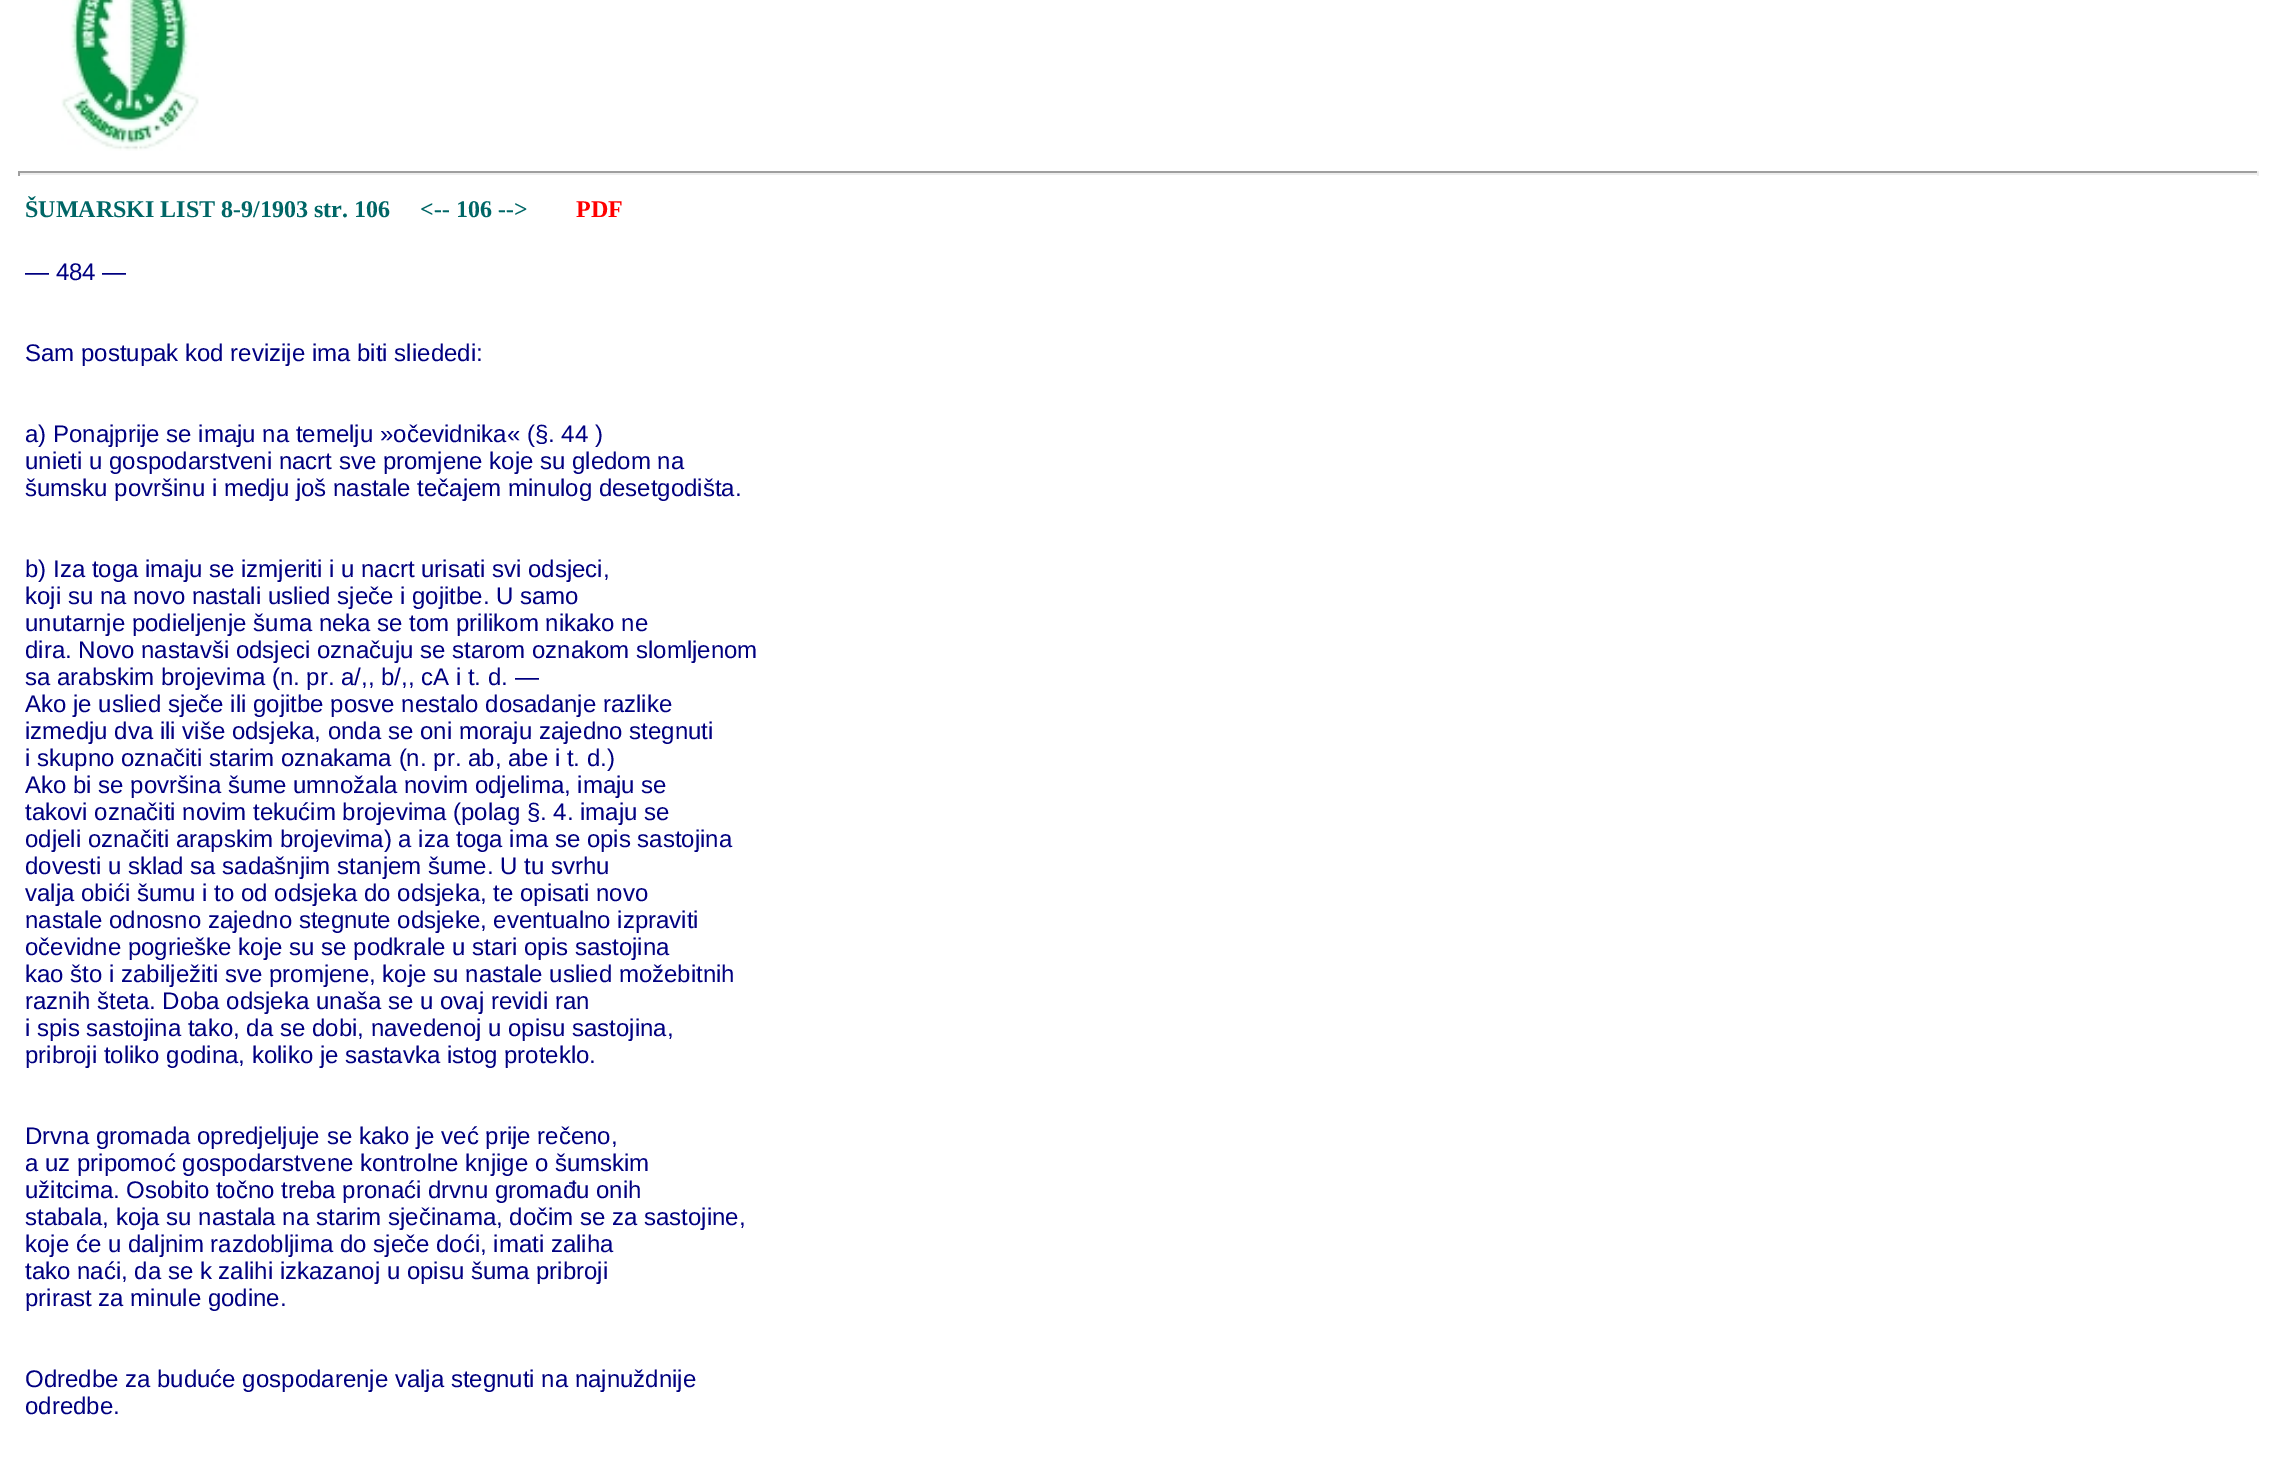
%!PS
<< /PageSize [2277 1461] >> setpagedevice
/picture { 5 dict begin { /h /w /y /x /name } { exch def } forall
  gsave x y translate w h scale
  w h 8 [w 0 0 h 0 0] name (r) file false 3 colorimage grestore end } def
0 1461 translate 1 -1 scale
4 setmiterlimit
1 setgray
0 0 2277 1461 rectfill
(img1.rgb) 61 0 138 151 picture
0.624 setgray
18 171 2241 2 rectfill
0.933 setgray
2257 171 2 5 rectfill
18 173 2241 2 rectfill
0.624 setgray
18 171 2 5 rectfill
/LiberationSerif-Bold [24 0 0 -24 0 0] selectfont
0 0.4 0.4 setrgbcolor
25 217 moveto (ŠUMARSKI LIST 8-9/1903 str. 106) show
420 217 moveto (<-- 106 -->) show
1 0 0 setrgbcolor
576 217 moveto (PDF) show
/LiberationSans-Regular [24 0 0 -24 0 0] selectfont
0 0 0.502 setrgbcolor
25 280 moveto (— 484 —) show
25 361 moveto (Sam postupak kod revizije ima biti sliededi:) show
25 442 moveto (a\) Ponajprije se imaju na temelju »očevidnika« \(§. 44 \)) show
25 469 moveto (unieti u gospodarstveni nacrt sve promjene koje su gledom na) show
25 496 moveto (šumsku površinu i medju još nastale tečajem minulog desetgodišta.) show
25 577 moveto (b\) Iza toga imaju se izmjeriti i u nacrt urisati svi odsjeci,) show
25 604 moveto (koji su na novo nastali uslied sječe i gojitbe. U samo) show
25 631 moveto (unutarnje podieljenje šuma neka se tom prilikom nikako ne) show
25 658 moveto (dira. Novo nastavši odsjeci označuju se starom oznakom slomljenom) show
25 685 moveto (sa arabskim brojevima \(n. pr. a/,, b/,, cA i t. d. —) show
25 712 moveto (Ako je uslied sječe ili gojitbe posve nestalo dosadanje razlike) show
25 739 moveto (izmedju dva ili više odsjeka, onda se oni moraju zajedno stegnuti) show
25 766 moveto (i skupno označiti starim oznakama \(n. pr. ab, abe i t. d.\)) show
25 793 moveto (Ako bi se površina šume umnožala novim odjelima, imaju se) show
25 820 moveto (takovi označiti novim tekućim brojevima \(polag §. 4. imaju se) show
25 847 moveto (odjeli označiti arapskim brojevima\) a iza toga ima se opis sastojina) show
25 874 moveto (dovesti u sklad sa sadašnjim stanjem šume. U tu svrhu) show
25 901 moveto (valja obići šumu i to od odsjeka do odsjeka, te opisati novo) show
25 928 moveto (nastale odnosno zajedno stegnute odsjeke, eventualno izpraviti) show
25 955 moveto (očevidne pogrieške koje su se podkrale u stari opis sastojina) show
25 982 moveto (kao što i zabilježiti sve promjene, koje su nastale uslied možebitnih) show
25 1009 moveto (raznih šteta. Doba odsjeka unaša se u ovaj revidi ran) show
25 1036 moveto (i spis sastojina tako, da se dobi, navedenoj u opisu sastojina,) show
25 1063 moveto (pribroji toliko godina, koliko je sastavka istog proteklo.) show
25 1144 moveto (Drvna gromada opredjeljuje se kako je već prije rečeno,) show
25 1171 moveto (a uz pripomoć gospodarstvene kontrolne knjige o šumskim) show
25 1198 moveto (užitcima. Osobito točno treba pronaći drvnu gromađu onih) show
25 1225 moveto (stabala, koja su nastala na starim sječinama, dočim se za sastojine,) show
25 1252 moveto (koje će u daljnim razdobljima do sječe doći, imati zaliha) show
25 1279 moveto (tako naći, da se k zalihi izkazanoj u opisu šuma pribroji) show
25 1306 moveto (prirast za minule godine.) show
25 1387 moveto (Odredbe za buduće gospodarenje valja stegnuti na najnuždnije) show
25 1414 moveto (odredbe.) show
showpage
